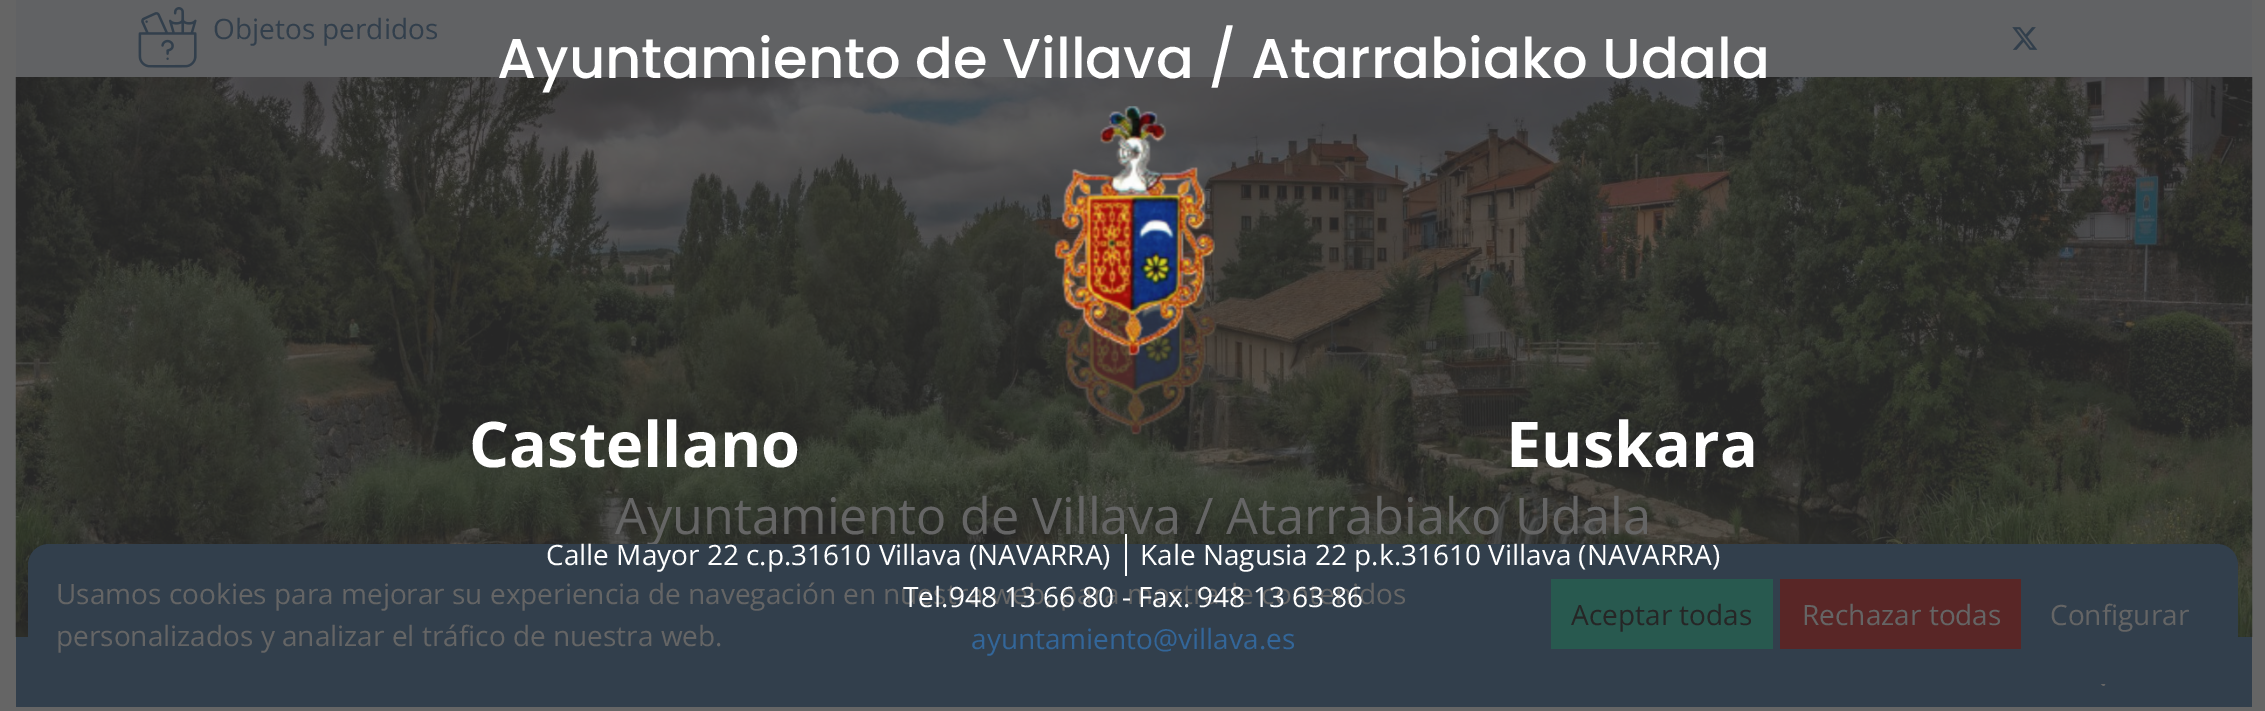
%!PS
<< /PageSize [2265 711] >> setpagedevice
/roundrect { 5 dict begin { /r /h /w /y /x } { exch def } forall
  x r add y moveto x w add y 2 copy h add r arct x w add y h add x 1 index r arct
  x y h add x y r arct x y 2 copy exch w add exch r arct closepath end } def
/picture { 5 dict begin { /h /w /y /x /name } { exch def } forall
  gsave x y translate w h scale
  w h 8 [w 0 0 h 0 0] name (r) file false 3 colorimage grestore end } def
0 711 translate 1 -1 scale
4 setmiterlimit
0.396 setgray
0 0 2265 711 rectfill
0.38 0.384 0.392 setrgbcolor
16 0 2236 77 rectfill
(img1.rgb) 138 7 59 61 picture
/OpenSans-Regular [28 0 0 -28 0 0] selectfont
0.196 0.247 0.298 setrgbcolor
213 39 moveto (Objetos perdidos) show
(img2.rgb) 2012 27 26 23 picture
(img3.rgb) 15 77 2238 560 picture
(img4.rgb) 1056 193 161 242 picture
/OpenSans-Regular [50.4 0 0 -50.4 0 0] selectfont
0.396 setgray
615 534 moveto (Ayuntamiento de Villava / Atarrabiako Udala) show
0.196 0.247 0.298 setrgbcolor
16 637 2236 70 rectfill
(img5.rgb) 2100 684 6 2 picture
/Poppins-Medium [56 0 0 -56 0 0] selectfont
1 setgray
497 78 moveto (Ayuntamiento de Villava / Atarrabiako Udala) show
(img6.rgb) 1054 106 161 250 picture
/OpenSans-Bold [63 0 0 -63 0 0] selectfont
469 467 moveto (Castellano) show
1506 467 moveto (Euskara) show
0.196 0.247 0.298 setrgbcolor
28 544 2210 140 21 roundrect fill
1 setgray
1125 534 2 42 rectfill
/OpenSans-Regular [28 0 0 -28 0 0] selectfont
546 565 moveto (Calle Mayor 22 c.p.31610 Villava \(NAVARRA\)) show
1140 565 moveto (Kale Nagusia 22 p.k.31610 Villava \(NAVARRA\)) show
0.396 setgray
56 604 moveto (Usamos cookies para mejorar su experiencia de navegación en nuestra web, para mostrarle contenidos) show
1 setgray
903 607 moveto (Tel.948 13 66 80 - Fax. 948 13 63 86) show
0.2 0.4 0.6 setrgbcolor
971 649 moveto (ayuntamiento@villava.es) show
0.396 setgray
56 646 moveto (personalizados y analizar el tráfico de nuestra web.) show
0.157 0.349 0.31 setrgbcolor
1551 579 222 70 rectfill
0.149 setgray
1571 625 moveto (Aceptar todas) show
0.349 0.149 0.149 setrgbcolor
1780 579 241 70 rectfill
0.396 setgray
1802 625 moveto (Rechazar todas) show
2050 625 moveto (Configurar) show
showpage
